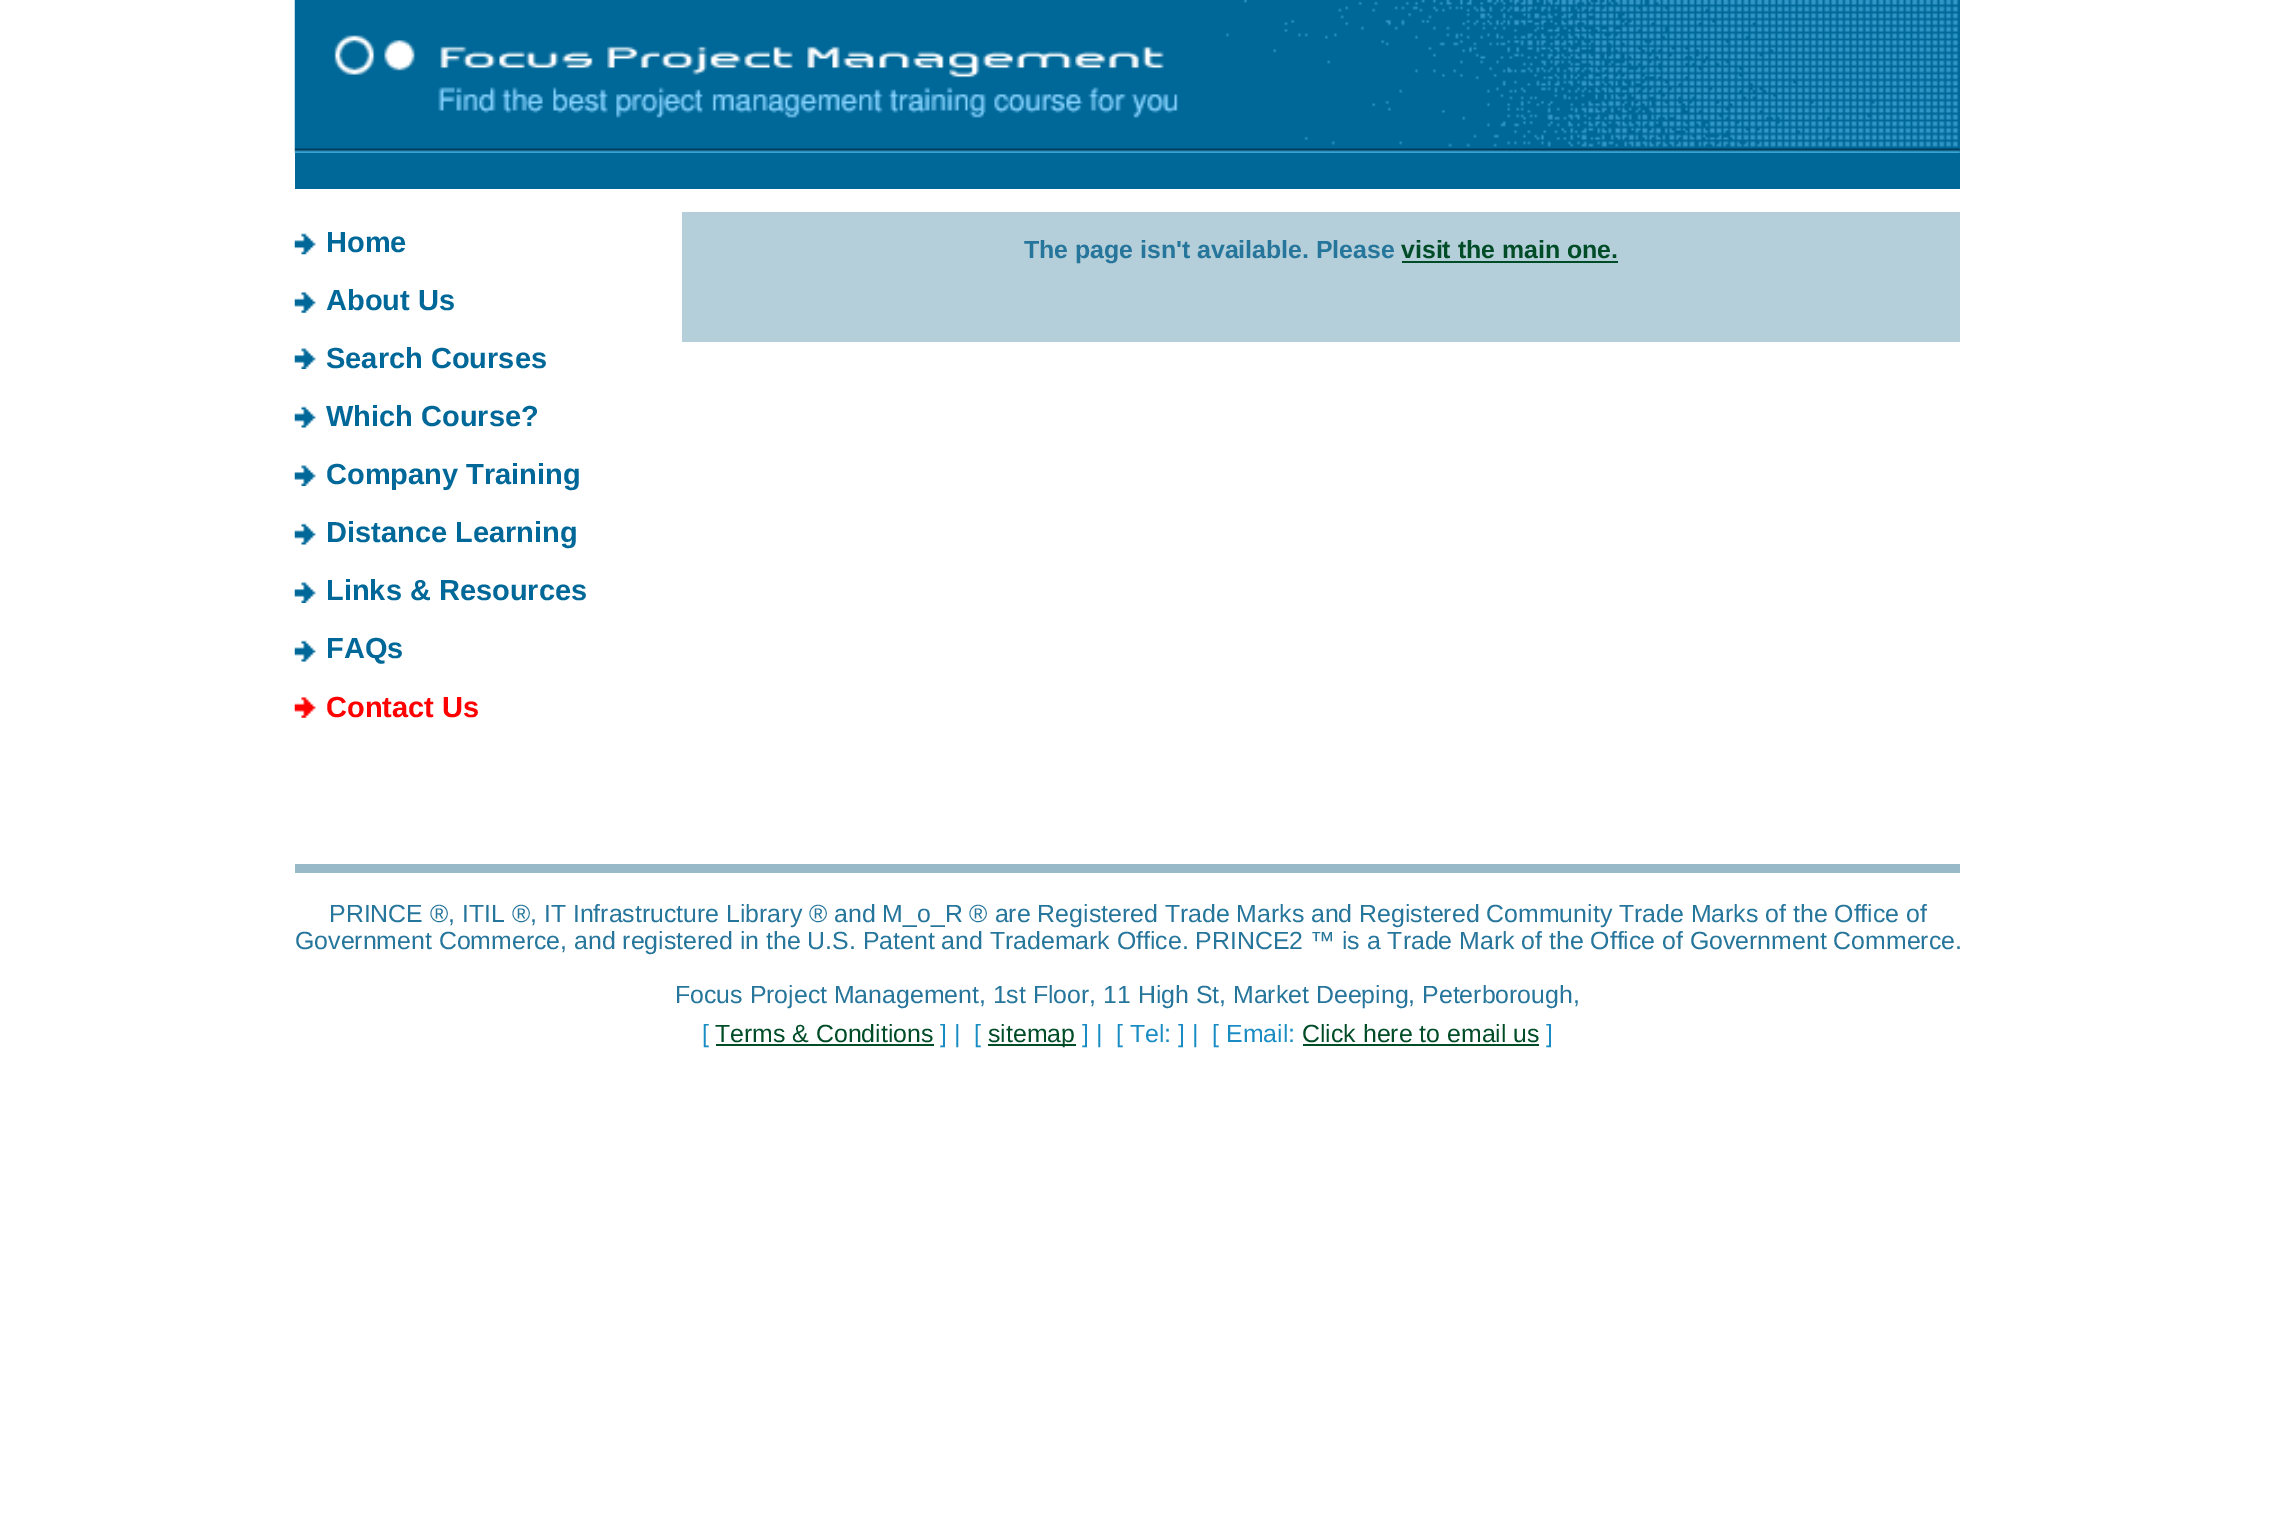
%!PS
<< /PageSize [2271 1523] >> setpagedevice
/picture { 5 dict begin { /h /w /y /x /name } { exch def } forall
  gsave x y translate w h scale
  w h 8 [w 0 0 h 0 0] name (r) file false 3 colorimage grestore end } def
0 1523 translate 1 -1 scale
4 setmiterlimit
1 setgray
0 0 2271 1523 rectfill
(img1.rgb) 294 0 1666 153 picture
0 0.408 0.6 setrgbcolor
295 153 1665 36 rectfill
(img2.rgb) 294 233 22 22 picture
/LiberationSans-Bold [29 0 0 -29 0 0] selectfont
326 252 moveto (Home) show
(img3.rgb) 294 292 22 21 picture
326 310 moveto (About Us) show
(img4.rgb) 294 348 22 21 picture
326 368 moveto (Search Courses) show
(img5.rgb) 294 406 22 22 picture
326 426 moveto (Which Course?) show
(img4.rgb) 294 465 22 21 picture
326 484 moveto (Company Training) show
(img5.rgb) 294 523 22 22 picture
326 542 moveto (Distance Learning) show
(img4.rgb) 294 582 22 21 picture
326 600 moveto (Links & Resources) show
(img5.rgb) 294 640 22 22 picture
326 658 moveto (FAQs) show
(img6.rgb) 294 697 22 21 picture
1 0 0 setrgbcolor
326 717 moveto (Contact Us) show
0.706 0.808 0.855 setrgbcolor
682 212 1278 130 rectfill
/LiberationSans-Bold [24.85 0 0 -24.85 0 0] selectfont
0.149 0.459 0.608 setrgbcolor
1024 258 moveto (The page isn't available. Please) show
0 0.298 0.153 setrgbcolor
1401 258 moveto (visit the main one.) show
1402 261 216 2 rectfill
0.592 0.725 0.784 setrgbcolor
295 864 1665 9 rectfill
/LiberationSans-Regular [24.85 0 0 -24.85 0 0] selectfont
0.149 0.459 0.608 setrgbcolor
329 922 moveto (PRINCE ®, ITIL ®, IT Infrastructure Library ® and M_o_R ® are Registered Trade Marks and Registered Community Trade Marks of the Office of) show
295 949 moveto (Government Commerce, and registered in the U.S. Patent and Trademark Office. PRINCE2 ™ is a Trade Mark of the Office of Government Commerce.) show
675 1003 moveto (Focus Project Management, 1st Floor, 11 High St, Market Deeping, Peterborough,) show
0.098 0.553 0.765 setrgbcolor
702 1042 moveto ([) show
0 0.298 0.153 setrgbcolor
715 1042 moveto (Terms & Conditions) show
716 1044 218 2 rectfill
0.098 0.553 0.765 setrgbcolor
940 1042 moveto (] |  [) show
0 0.298 0.153 setrgbcolor
988 1044 88 2 rectfill
988 1042 moveto (sitemap) show
0.098 0.553 0.765 setrgbcolor
1082 1042 moveto (] |  [ Tel: ] |  [ Email:) show
0 0.298 0.153 setrgbcolor
1302 1042 moveto (Click here to email us) show
1303 1044 236 2 rectfill
0.098 0.553 0.765 setrgbcolor
1546 1042 moveto (]) show
showpage
